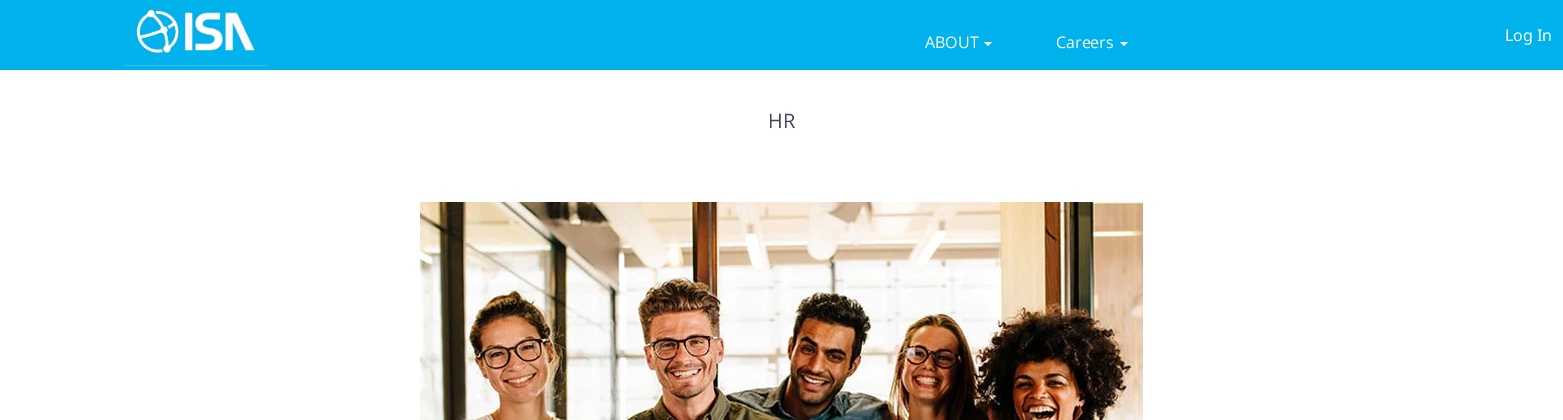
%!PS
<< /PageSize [1563 420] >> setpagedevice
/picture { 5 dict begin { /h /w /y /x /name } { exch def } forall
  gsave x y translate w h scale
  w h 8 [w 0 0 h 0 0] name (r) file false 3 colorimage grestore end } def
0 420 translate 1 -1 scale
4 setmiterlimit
1 setgray
0 0 1563 420 rectfill
0 0.698 0.925 setrgbcolor
0 0 1563 70 rectfill
(img1.rgb) 122 9 147 57 picture
/OpenSans-Regular [16 0 0 -16 0 0] selectfont
1 setgray
925 48 moveto (ABOUT) show
newpath 984 42 moveto 992 42 lineto 988 46 lineto closepath fill
1056 48 moveto (Careers) show
newpath 1120 42 moveto 1128 42 lineto 1124 46 lineto closepath fill
/NotoSans-Regular [16 0 0 -16 0 0] selectfont
1505 41 moveto (Log In) show
/OpenSans-Regular [20 0 0 -20 0 0] selectfont
0.259 0.263 0.365 setrgbcolor
768 128 moveto (HR) show
(img2.rgb) 420 202 723 218 picture
showpage
